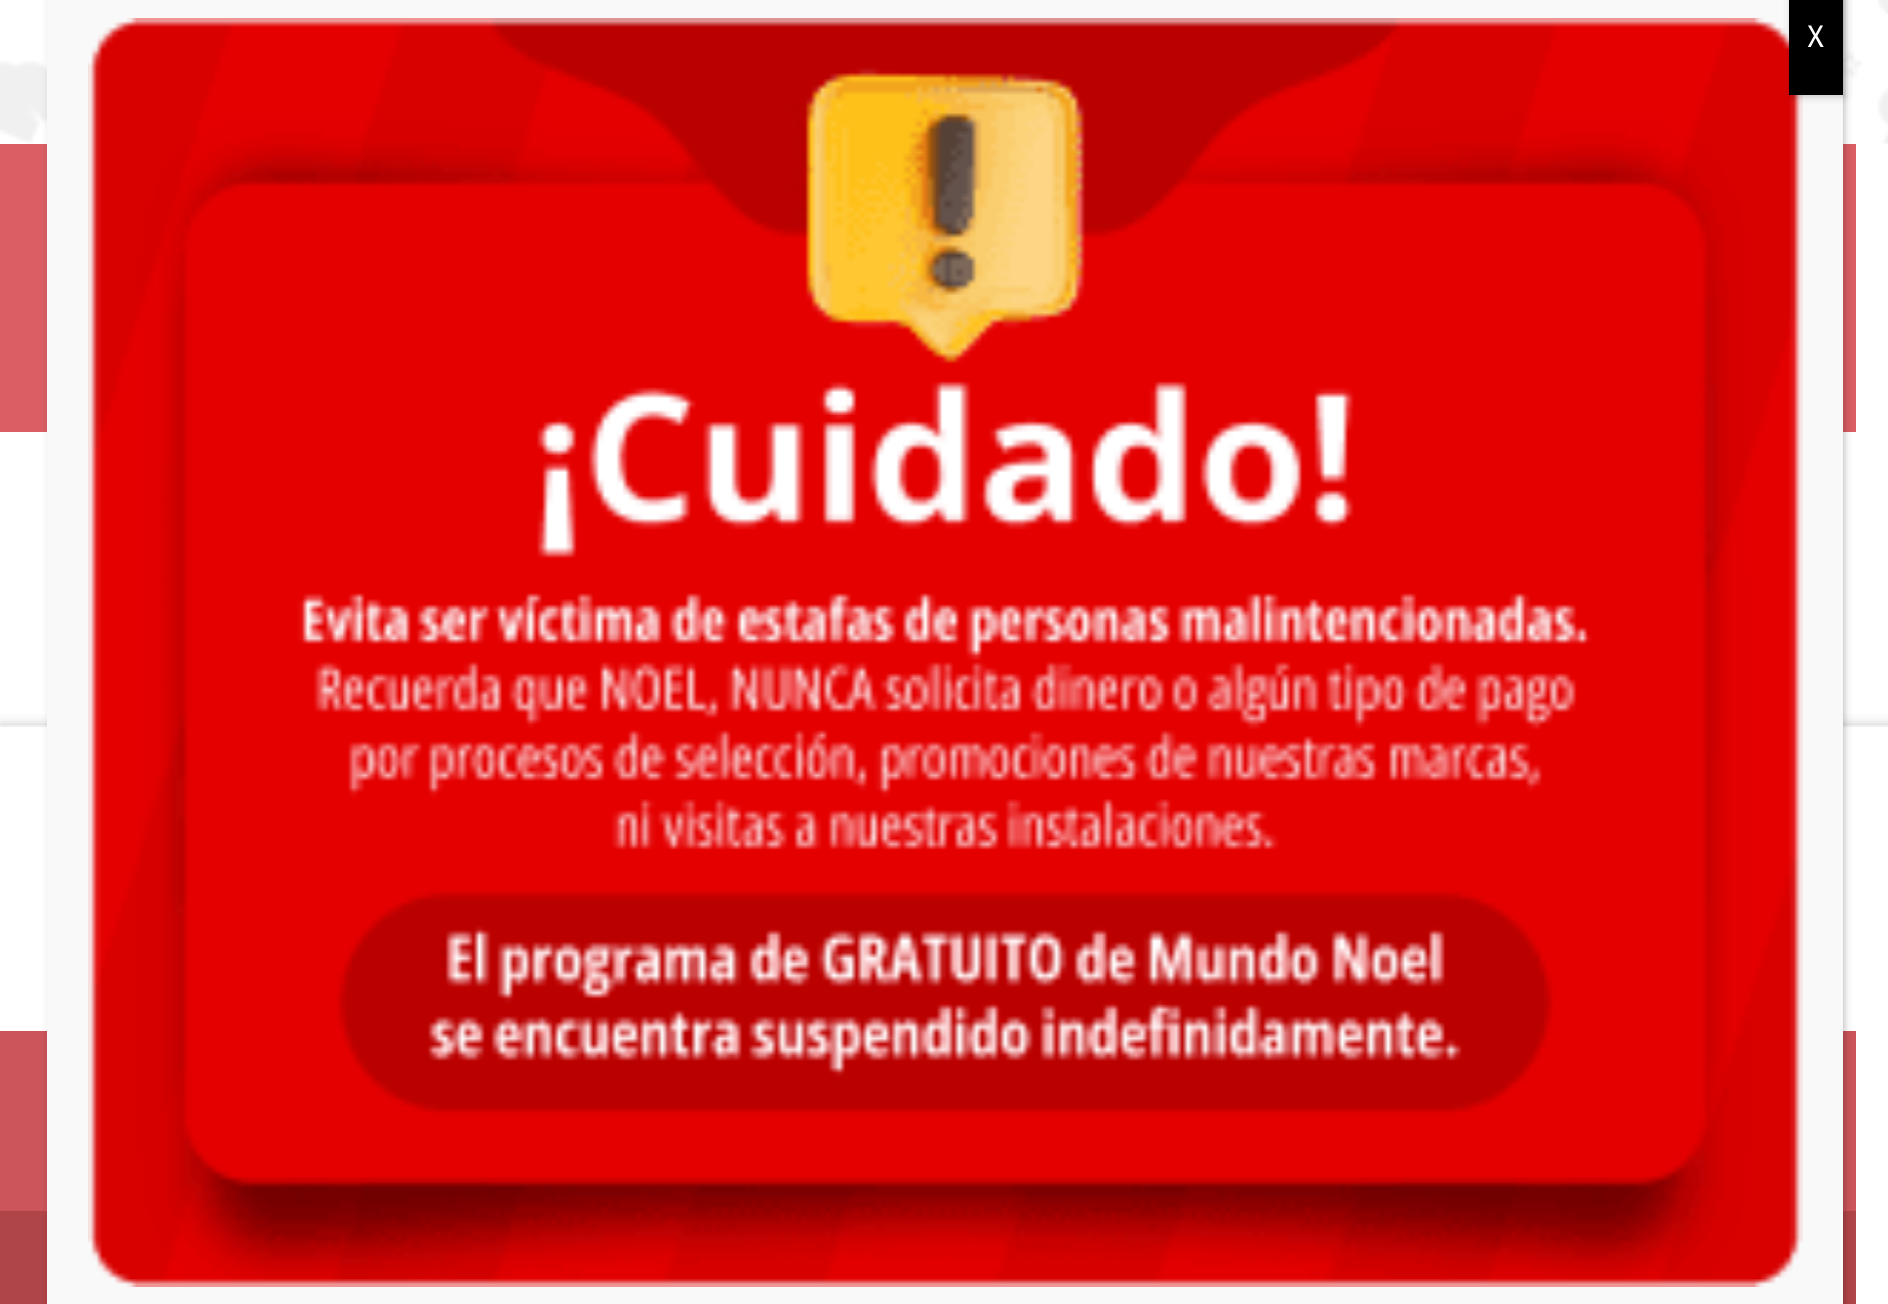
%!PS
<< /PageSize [1888 1304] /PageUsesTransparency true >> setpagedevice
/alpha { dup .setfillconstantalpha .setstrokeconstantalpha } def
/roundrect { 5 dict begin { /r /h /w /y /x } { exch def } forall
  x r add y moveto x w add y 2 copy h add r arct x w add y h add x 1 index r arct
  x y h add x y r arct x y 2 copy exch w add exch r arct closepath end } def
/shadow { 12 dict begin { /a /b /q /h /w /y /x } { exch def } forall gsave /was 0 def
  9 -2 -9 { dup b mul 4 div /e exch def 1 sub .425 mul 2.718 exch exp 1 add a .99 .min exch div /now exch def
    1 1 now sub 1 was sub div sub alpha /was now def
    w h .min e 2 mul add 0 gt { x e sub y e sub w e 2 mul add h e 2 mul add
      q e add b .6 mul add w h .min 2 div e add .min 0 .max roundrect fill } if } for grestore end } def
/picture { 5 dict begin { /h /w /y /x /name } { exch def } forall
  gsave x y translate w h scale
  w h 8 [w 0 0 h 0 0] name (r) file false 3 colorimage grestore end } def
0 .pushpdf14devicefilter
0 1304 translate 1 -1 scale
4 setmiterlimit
1 setgray
0 0 1888 1304 rectfill
(img1.rgb) 0 0 1888 144 picture
0.855 0.369 0.388 setrgbcolor
0 144 1856 288 rectfill
gsave
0 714 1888 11 rectclip
0.776 setgray
0 725 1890 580 0 5.5 1 shadow
grestore
0.937 setgray
0 725 1888 2 rectfill
0.796 0.333 0.353 setrgbcolor
0 1031 1856 180 rectfill
0.69 0.271 0.286 setrgbcolor
0 1211 1856 93 rectfill
0.008 setgray
50 -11 1795 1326 0 3.5 0.23 shadow
0.976 setgray
47 0 1796 1304 rectfill
(img2.rgb) 88 18 1715 1269 picture
0.008 setgray
1791 -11 54 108 0 3.5 0.2 shadow
0 setgray
1789 0 54 95 rectfill
/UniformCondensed-Regular [27 0 0 -27 0 0] selectfont
1 setgray
1807 47 moveto (X) show
.poppdf14devicefilter showpage
